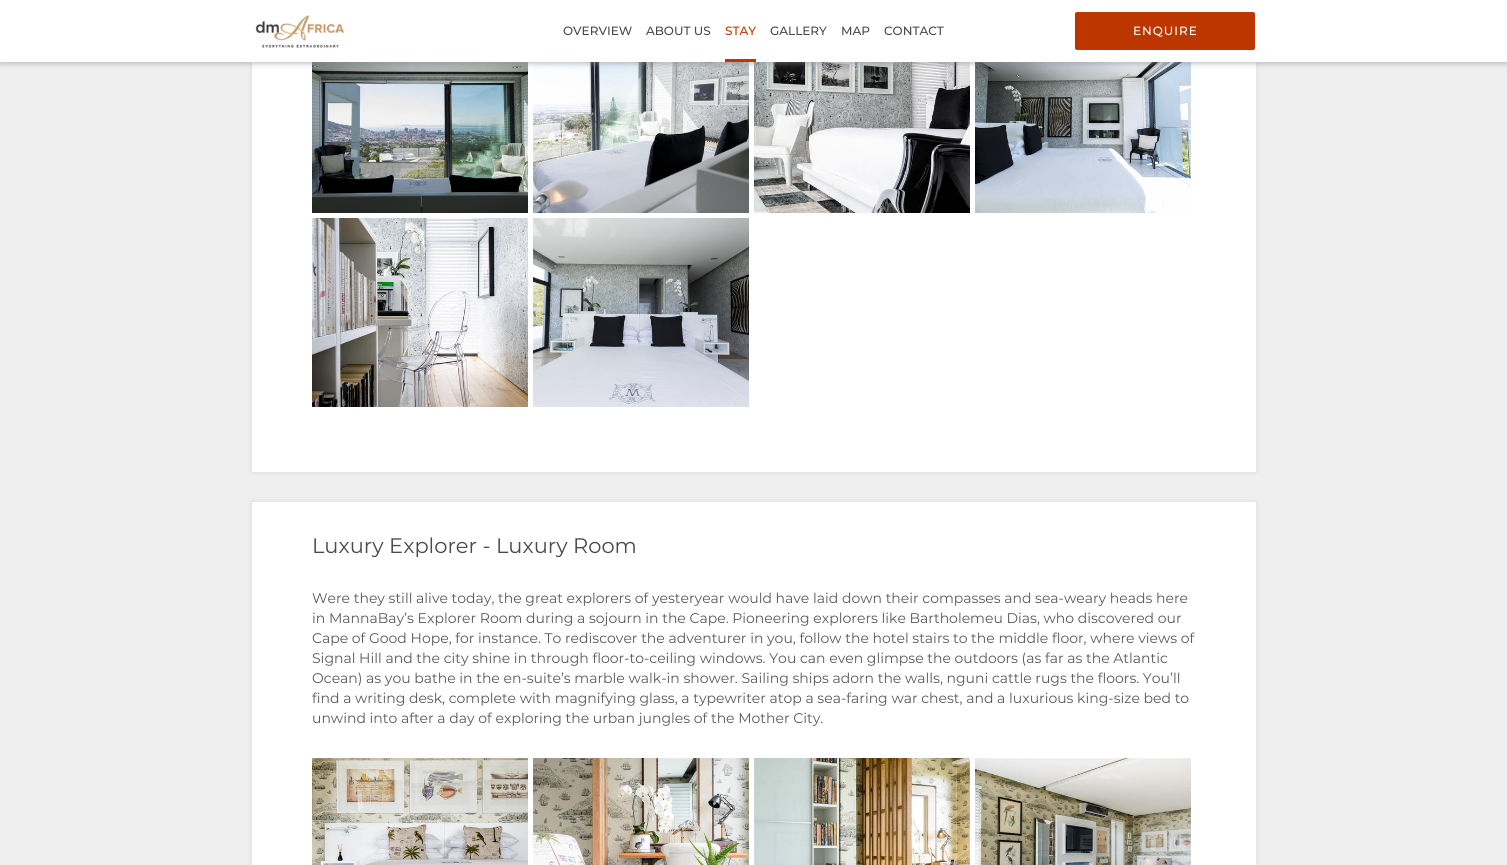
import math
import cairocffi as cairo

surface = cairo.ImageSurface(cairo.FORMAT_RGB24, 1507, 865)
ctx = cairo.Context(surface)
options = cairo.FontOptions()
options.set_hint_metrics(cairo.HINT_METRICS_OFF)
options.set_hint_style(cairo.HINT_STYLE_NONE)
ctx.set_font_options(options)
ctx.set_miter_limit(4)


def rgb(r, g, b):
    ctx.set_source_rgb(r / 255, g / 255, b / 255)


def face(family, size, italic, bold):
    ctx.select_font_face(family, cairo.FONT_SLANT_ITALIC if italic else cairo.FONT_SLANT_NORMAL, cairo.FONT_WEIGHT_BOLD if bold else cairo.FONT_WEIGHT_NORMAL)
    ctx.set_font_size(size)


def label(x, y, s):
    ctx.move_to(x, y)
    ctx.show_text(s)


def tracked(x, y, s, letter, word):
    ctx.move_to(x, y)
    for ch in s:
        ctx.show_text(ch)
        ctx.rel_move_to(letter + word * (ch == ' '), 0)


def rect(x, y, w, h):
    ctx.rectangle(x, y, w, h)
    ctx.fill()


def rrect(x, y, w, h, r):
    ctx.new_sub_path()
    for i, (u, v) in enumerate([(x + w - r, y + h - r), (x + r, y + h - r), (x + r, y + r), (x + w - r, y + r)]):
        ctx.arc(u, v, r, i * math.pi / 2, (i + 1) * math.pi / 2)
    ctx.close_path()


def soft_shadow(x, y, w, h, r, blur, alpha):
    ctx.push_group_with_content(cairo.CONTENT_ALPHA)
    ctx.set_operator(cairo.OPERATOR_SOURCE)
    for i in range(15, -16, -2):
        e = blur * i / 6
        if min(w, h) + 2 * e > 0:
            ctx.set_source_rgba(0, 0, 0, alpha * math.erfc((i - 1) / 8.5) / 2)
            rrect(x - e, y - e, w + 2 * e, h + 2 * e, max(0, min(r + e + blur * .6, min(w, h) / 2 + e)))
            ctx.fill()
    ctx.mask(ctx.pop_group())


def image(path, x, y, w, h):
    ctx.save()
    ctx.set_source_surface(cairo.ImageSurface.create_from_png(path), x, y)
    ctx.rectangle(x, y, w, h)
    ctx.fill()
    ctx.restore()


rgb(239, 239, 239)
ctx.paint()
rgb(0, 0, 0)
soft_shadow(252, -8, 1004, 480, 0, 2.5, 0.1)
rgb(255, 255, 255)
rect(252, 62, 1004, 410)
image('image1.png', 312, 62, 216, 151)
image('image2.png', 533, 62, 216, 151)
image('image3.png', 754, 62, 216, 151)
image('image4.png', 975, 62, 216, 151)
rgb(127, 142, 160)
soft_shadow(0, 2, 1507, 62, 0, 2.5, 0.5)
rgb(255, 255, 255)
rect(0, 0, 1507, 62)
image('image0.png', 255, 15, 90, 33)
face('Montserrat Medium', 12, 0, 0)
rgb(74, 74, 74)
label(563, 35, 'OVERVIEW')
label(646, 35, 'ABOUT US')
rgb(189, 54, 0)
label(725, 35, 'STAY')
rect(725, 59, 31, 3)
rgb(74, 74, 74)
label(770, 35, 'GALLERY')
label(841, 35, 'MAP')
label(884, 35, 'CONTACT')
rgb(189, 54, 0)
rrect(1075, 12, 180, 38, 2)
ctx.fill()
rgb(255, 255, 255)
tracked(1133, 35, 'ENQUIRE', 1, 0)
image('image5.png', 312, 218, 216, 189)
image('image6.png', 533, 218, 216, 189)
rgb(0, 0, 0)
soft_shadow(252, 502, 1004, 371, 0, 2.5, 0.1)
rgb(255, 255, 255)
rect(252, 502, 1004, 363)
face('Montserrat', 21, 0, 0)
rgb(74, 74, 74)
label(312, 553, 'Luxury Explorer - Luxury Room')
face('Montserrat', 14, 0, 0)
rgb(90, 90, 90)
label(312, 603, 'Were they still alive today, the great explorers of yesteryear would have laid down their compasses and sea-weary heads here')
label(312, 623, 'in MannaBay’s Explorer Room during a sojourn in the Cape. Pioneering explorers like Bartholemeu Dias, who discovered our')
label(312, 643, 'Cape of Good Hope, for instance. To rediscover the adventurer in you, follow the hotel stairs to the middle floor, where views of')
label(312, 663, 'Signal Hill and the city shine in through floor-to-ceiling windows. You can even glimpse the outdoors (as far as the Atlantic')
label(312, 683, 'Ocean) as you bathe in the en-suite’s marble walk-in shower. Sailing ships adorn the walls, nguni cattle rugs the floors. You’ll')
label(312, 703, 'find a writing desk, complete with magnifying glass, a typewriter atop a sea-faring war chest, and a luxurious king-size bed to')
label(312, 723, 'unwind into after a day of exploring the urban jungles of the Mother City.')
image('image7.png', 312, 758, 216, 107)
image('image8.png', 533, 758, 216, 107)
image('image9.png', 754, 758, 216, 107)
image('image10.png', 975, 758, 216, 107)
surface.write_to_png('render.png')
